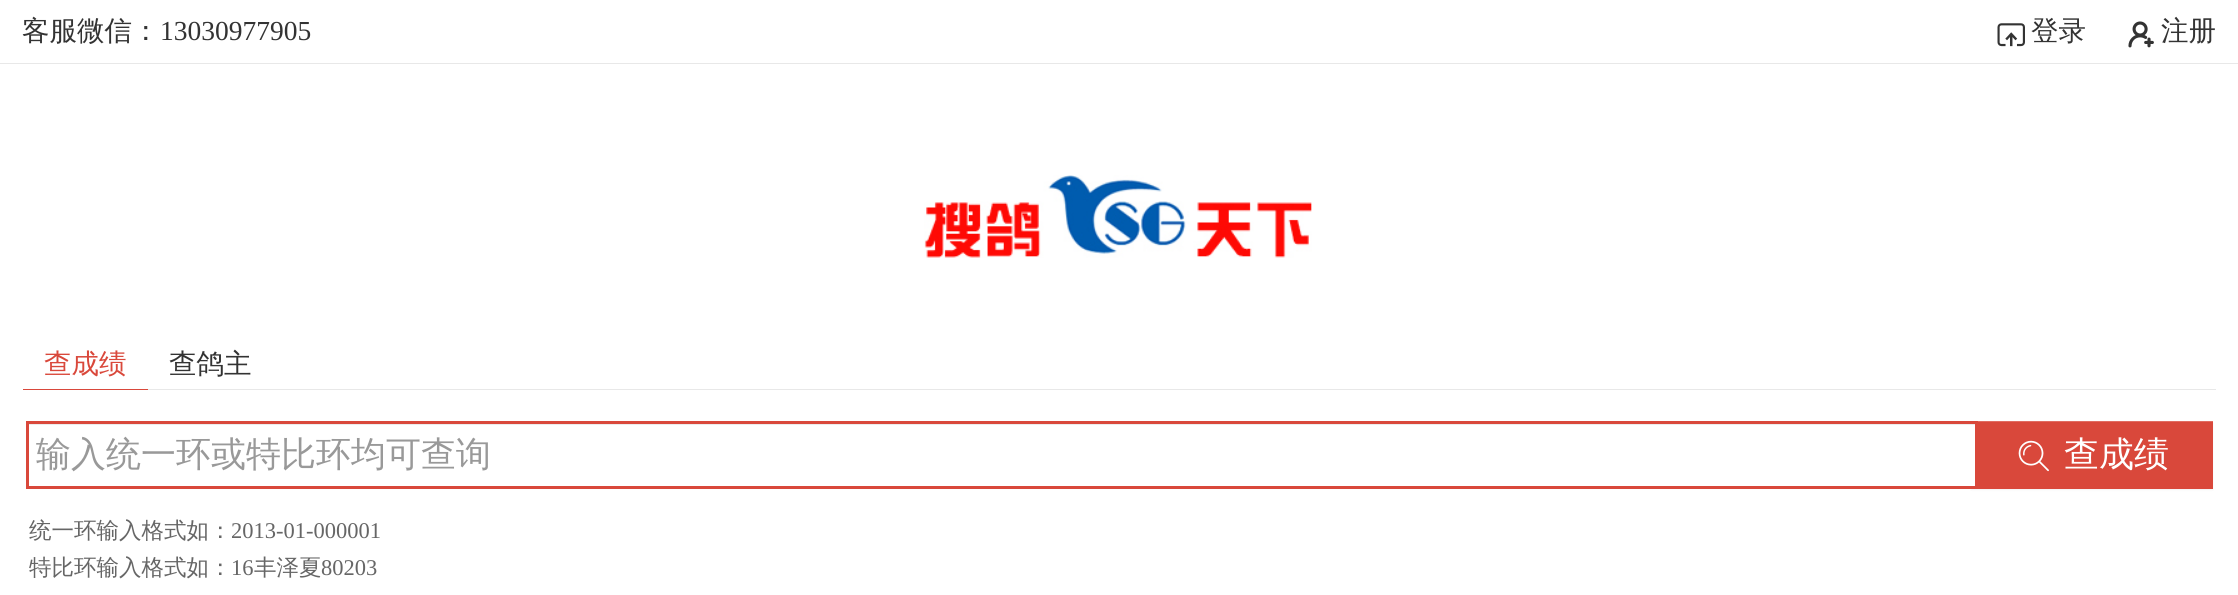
import math
import cairocffi as cairo

surface = cairo.ImageSurface(cairo.FORMAT_RGB24, 2238, 595)
ctx = cairo.Context(surface)
options = cairo.FontOptions()
options.set_hint_metrics(cairo.HINT_METRICS_OFF)
options.set_hint_style(cairo.HINT_STYLE_NONE)
ctx.set_font_options(options)
ctx.set_miter_limit(4)


def rgb(r, g, b):
    ctx.set_source_rgb(r / 255, g / 255, b / 255)


def face(family, size, italic, bold):
    ctx.select_font_face(family, cairo.FONT_SLANT_ITALIC if italic else cairo.FONT_SLANT_NORMAL, cairo.FONT_WEIGHT_BOLD if bold else cairo.FONT_WEIGHT_NORMAL)
    ctx.set_font_size(size)


def label(x, y, s):
    ctx.move_to(x, y)
    ctx.show_text(s)


def rect(x, y, w, h):
    ctx.rectangle(x, y, w, h)
    ctx.fill()


def rrect(x, y, w, h, r):
    ctx.new_sub_path()
    for i, (u, v) in enumerate([(x + w - r, y + h - r), (x + r, y + h - r), (x + r, y + r), (x + w - r, y + r)]):
        ctx.arc(u, v, r, i * math.pi / 2, (i + 1) * math.pi / 2)
    ctx.close_path()


def soft_shadow(x, y, w, h, r, blur, alpha):
    ctx.push_group_with_content(cairo.CONTENT_ALPHA)
    ctx.set_operator(cairo.OPERATOR_SOURCE)
    for i in range(15, -16, -2):
        e = blur * i / 6
        if min(w, h) + 2 * e > 0:
            ctx.set_source_rgba(0, 0, 0, alpha * math.erfc((i - 1) / 8.5) / 2)
            rrect(x - e, y - e, w + 2 * e, h + 2 * e, max(0, min(r + e + blur * .6, min(w, h) / 2 + e)))
            ctx.fill()
    ctx.mask(ctx.pop_group())


def image(path, x, y, w, h):
    ctx.save()
    ctx.set_source_surface(cairo.ImageSurface.create_from_png(path), x, y)
    ctx.rectangle(x, y, w, h)
    ctx.fill()
    ctx.restore()


rgb(255, 255, 255)
ctx.paint()
rgb(232, 232, 232)
rect(0, 63, 2238, 1)
face('WenQuanYi Zen Hei Medium', 27.5, 0, 0)
rgb(51, 51, 51)
label(22, 40, '客服微信：')
face('Liberation Serif', 27.5, 0, 0)
label(160, 40, '13030977905')
image('image0.png', 1997, 23, 28, 24)
face('WenQuanYi Zen Hei Medium', 27.5, 0, 0)
label(2031, 40, '登录')
image('image1.png', 2128, 21, 26, 27)
label(2161, 40, '注册')
image('image2.png', 924, 175, 388, 83)
rgb(232, 232, 232)
rect(148, 389, 2068, 1)
rgb(217, 72, 59)
rect(23, 389, 125, 1)
label(44, 373, '查成绩')
rgb(51, 51, 51)
label(169, 373, '查鸽主')
rgb(0, 0, 0)
soft_shadow(1971, 423, 242, 67, 0, 1, 0.05)
rgb(255, 255, 255)
rect(1970, 425, 5, 61)
rgb(236, 236, 236)
rect(29, 424, 1946, 1)
rgb(225, 109, 98)
rect(1971, 421, 242, 1)
ctx.rectangle(27.5, 422.5, 1949, 65)
rgb(217, 72, 59)
ctx.set_line_width(3)
ctx.stroke()
face('WenQuanYi Zen Hei Medium', 35, 0, 0)
rgb(153, 153, 153)
label(36, 466, '输入统一环或特比环均可查询')
rgb(217, 72, 59)
rect(1978, 422, 235, 67)
image('image3.png', 2018, 440, 31, 32)
rgb(255, 255, 255)
label(2064, 466, '查成绩')
face('WenQuanYi Zen Hei Medium', 22.5, 0, 0)
rgb(102, 102, 102)
label(29, 538, '统一环输入格式如：')
face('Liberation Serif', 22.5, 0, 0)
label(231, 538, '2013-01-000001')
face('WenQuanYi Zen Hei Medium', 22.5, 0, 0)
label(29, 575, '特比环输入格式如：')
face('Liberation Serif', 22.5, 0, 0)
label(231, 575, '16')
face('WenQuanYi Zen Hei Medium', 22.5, 0, 0)
label(254, 575, '丰泽夏')
face('Liberation Serif', 22.5, 0, 0)
label(321, 575, '80203')
surface.write_to_png('render.png')
